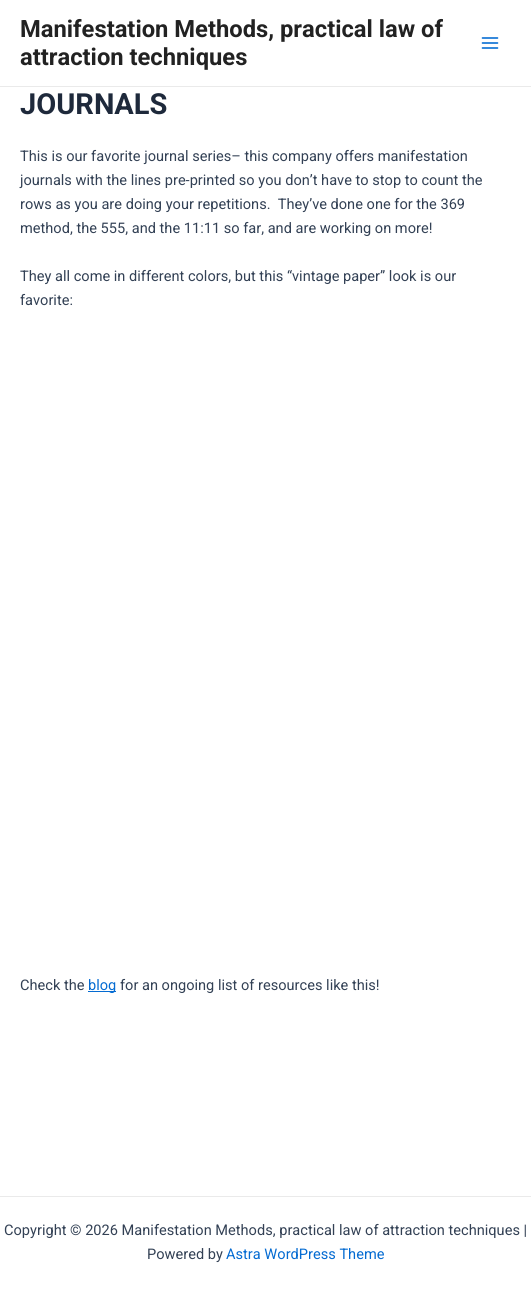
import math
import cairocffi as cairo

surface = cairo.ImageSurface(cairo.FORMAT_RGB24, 531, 1297)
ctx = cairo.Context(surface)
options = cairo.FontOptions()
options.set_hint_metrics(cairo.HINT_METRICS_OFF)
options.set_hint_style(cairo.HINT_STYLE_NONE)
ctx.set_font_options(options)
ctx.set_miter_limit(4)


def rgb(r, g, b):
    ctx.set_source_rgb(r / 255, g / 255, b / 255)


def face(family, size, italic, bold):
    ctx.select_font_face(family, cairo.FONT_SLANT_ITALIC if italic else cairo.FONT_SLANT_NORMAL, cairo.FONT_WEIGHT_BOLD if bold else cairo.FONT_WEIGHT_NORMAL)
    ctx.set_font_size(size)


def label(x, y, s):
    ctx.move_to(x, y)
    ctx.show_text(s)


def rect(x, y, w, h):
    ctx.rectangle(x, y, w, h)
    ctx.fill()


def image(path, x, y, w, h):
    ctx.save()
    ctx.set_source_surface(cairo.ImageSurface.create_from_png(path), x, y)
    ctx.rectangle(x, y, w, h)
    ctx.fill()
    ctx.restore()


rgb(255, 255, 255)
ctx.paint()
rgb(234, 234, 234)
rect(0, 86, 531, 1)
face('Roboto', 23.75, 0, 1)
rgb(34, 34, 34)
label(20, 37, 'Manifestation Methods, practical law of')
label(20, 65, 'attraction techniques')
image('image0.png', 481, 37, 18, 12)
face('Roboto', 29, 0, 1)
rgb(30, 41, 59)
label(20, 114, 'JOURNALS')
face('Roboto', 14.6, 0, 0)
rgb(51, 65, 85)
label(20, 161, 'This is our favorite journal series– this company offers manifestation')
label(20, 185, 'journals with the lines pre-printed so you don’t have to stop to count the')
label(20, 209, 'rows as you are doing your repetitions.  They’ve done one for the 369')
label(20, 233, 'method, the 555, and the 11:11 so far, and are working on more!')
label(20, 281, 'They all come in different colors, but this “vintage paper” look is our')
label(20, 305, 'favorite:')
label(20, 990, 'Check the')
rgb(4, 107, 210)
rect(88, 991, 28, 1)
label(88, 990, 'blog')
rgb(51, 65, 85)
label(120, 990, 'for an ongoing list of resources like this!')
rgb(234, 234, 234)
rect(0, 1196, 531, 1)
rgb(51, 65, 85)
label(4, 1235, 'Copyright © 2026 Manifestation Methods, practical law of attraction techniques |')
label(147, 1259, 'Powered by')
rgb(4, 107, 210)
label(226, 1259, 'Astra WordPress Theme')
surface.write_to_png('render.png')
